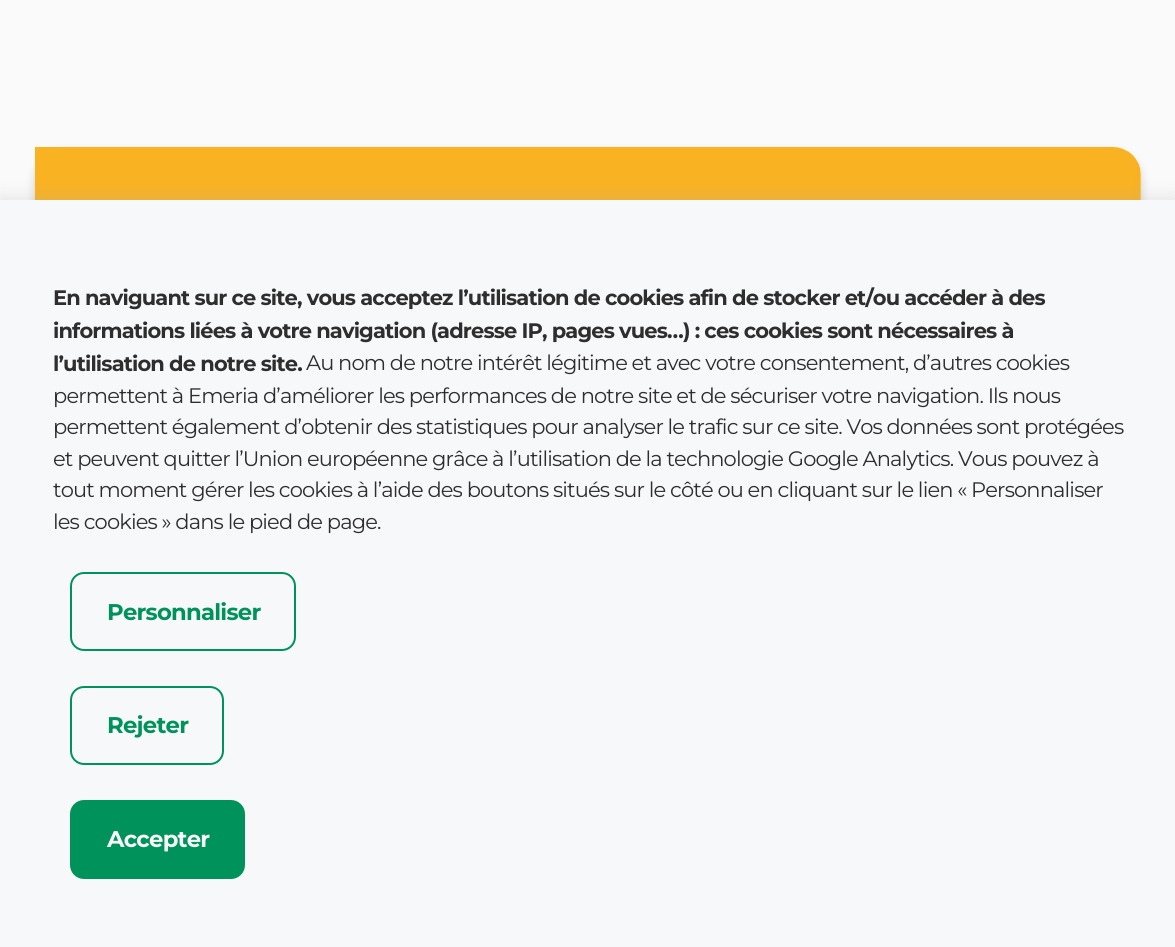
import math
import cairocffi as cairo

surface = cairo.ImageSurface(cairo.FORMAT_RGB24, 1175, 947)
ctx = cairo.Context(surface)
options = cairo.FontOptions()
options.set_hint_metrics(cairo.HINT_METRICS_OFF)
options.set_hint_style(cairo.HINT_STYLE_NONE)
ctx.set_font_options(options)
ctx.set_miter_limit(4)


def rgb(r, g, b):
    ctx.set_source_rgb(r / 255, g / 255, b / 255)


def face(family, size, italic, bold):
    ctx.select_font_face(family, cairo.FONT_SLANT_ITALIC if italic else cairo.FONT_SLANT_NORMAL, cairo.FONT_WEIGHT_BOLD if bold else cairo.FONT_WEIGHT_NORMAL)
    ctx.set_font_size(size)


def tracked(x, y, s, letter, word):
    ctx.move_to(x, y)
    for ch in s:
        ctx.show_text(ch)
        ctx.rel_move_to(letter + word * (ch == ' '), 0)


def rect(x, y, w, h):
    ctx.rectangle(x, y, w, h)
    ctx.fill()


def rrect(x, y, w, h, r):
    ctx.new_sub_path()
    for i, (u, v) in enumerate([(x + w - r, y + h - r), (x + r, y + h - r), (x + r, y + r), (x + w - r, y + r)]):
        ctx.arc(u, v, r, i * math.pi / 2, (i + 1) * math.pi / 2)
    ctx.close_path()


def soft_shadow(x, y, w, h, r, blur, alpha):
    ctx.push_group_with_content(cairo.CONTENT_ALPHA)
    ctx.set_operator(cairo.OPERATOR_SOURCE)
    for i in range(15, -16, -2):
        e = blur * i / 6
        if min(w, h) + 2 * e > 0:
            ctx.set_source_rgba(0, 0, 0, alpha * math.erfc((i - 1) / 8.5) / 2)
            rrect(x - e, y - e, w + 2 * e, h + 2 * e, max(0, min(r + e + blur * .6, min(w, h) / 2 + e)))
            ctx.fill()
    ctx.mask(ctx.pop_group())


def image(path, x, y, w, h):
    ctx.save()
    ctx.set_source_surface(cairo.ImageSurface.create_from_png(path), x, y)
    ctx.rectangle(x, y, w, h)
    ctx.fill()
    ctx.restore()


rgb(250, 250, 250)
ctx.paint()
rgb(0, 0, 0)
soft_shadow(35, 152, 1106, 321, 28, 5, 0.16)
rgb(255, 255, 255)
ctx.new_path()
ctx.move_to(35, 147)
ctx.line_to(1113, 147)
ctx.curve_to(1128.5, 147, 1141, 159.5, 1141, 175)
ctx.line_to(1141, 467)
ctx.line_to(63, 467)
ctx.curve_to(47.5, 467, 35, 454.5, 35, 439)
ctx.close_path()
ctx.fill()
image('image0.png', 35, 147, 1106, 53)
rgb(172, 171, 171)
soft_shadow(0, 198, 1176, 749, 0, 9, 0.3)
rgb(247, 248, 249)
rect(0, 200, 1175, 747)
face('Montserrat', 21, 0, 1)
rgb(46, 46, 46)
tracked(53, 305, 'En naviguant sur ce site, vous acceptez l’utilisation de cookies afin de stocker et/ou accéder à des', -0.86, 0)
tracked(53, 338, 'informations liées à votre navigation (adresse IP, pages vues…) : ces cookies sont nécessaires à', -0.86, 0)
tracked(53, 371, 'l’utilisation de notre site.', -0.86, 0)
face('Montserrat', 21, 0, 0)
tracked(306, 370, 'Au nom de notre intérêt légitime et avec votre consentement, d’autres cookies', -0.86, 0)
tracked(53, 403, 'permettent à Emeria d’améliorer les performances de notre site et de sécuriser votre navigation. Ils nous', -0.86, 0)
tracked(53, 434, 'permettent également d’obtenir des statistiques pour analyser le trafic sur ce site. Vos données sont protégées', -0.86, 0)
tracked(53, 466, 'et peuvent quitter l’Union européenne grâce à l’utilisation de la technologie Google Analytics. Vous pouvez à', -0.86, 0)
tracked(53, 497, 'tout moment gérer les cookies à l’aide des boutons situés sur le côté ou en cliquant sur le lien « Personnaliser', -0.86, 0)
tracked(53, 529, 'les cookies » dans le pied de page.', -0.86, 0)
rrect(71, 573, 224, 77, 13)
rgb(0, 146, 91)
ctx.stroke()
face('Montserrat', 22.75, 0, 1)
tracked(107, 620, 'Personnaliser', -0.75, 0)
rrect(71, 687, 152, 77, 13)
ctx.stroke()
tracked(107, 733, 'Rejeter', -0.75, 0)
rrect(71, 801, 173, 77, 13)
ctx.fill_preserve()
ctx.stroke()
rgb(247, 248, 249)
tracked(107, 847, 'Accepter', -0.75, 0)
surface.write_to_png('render.png')
